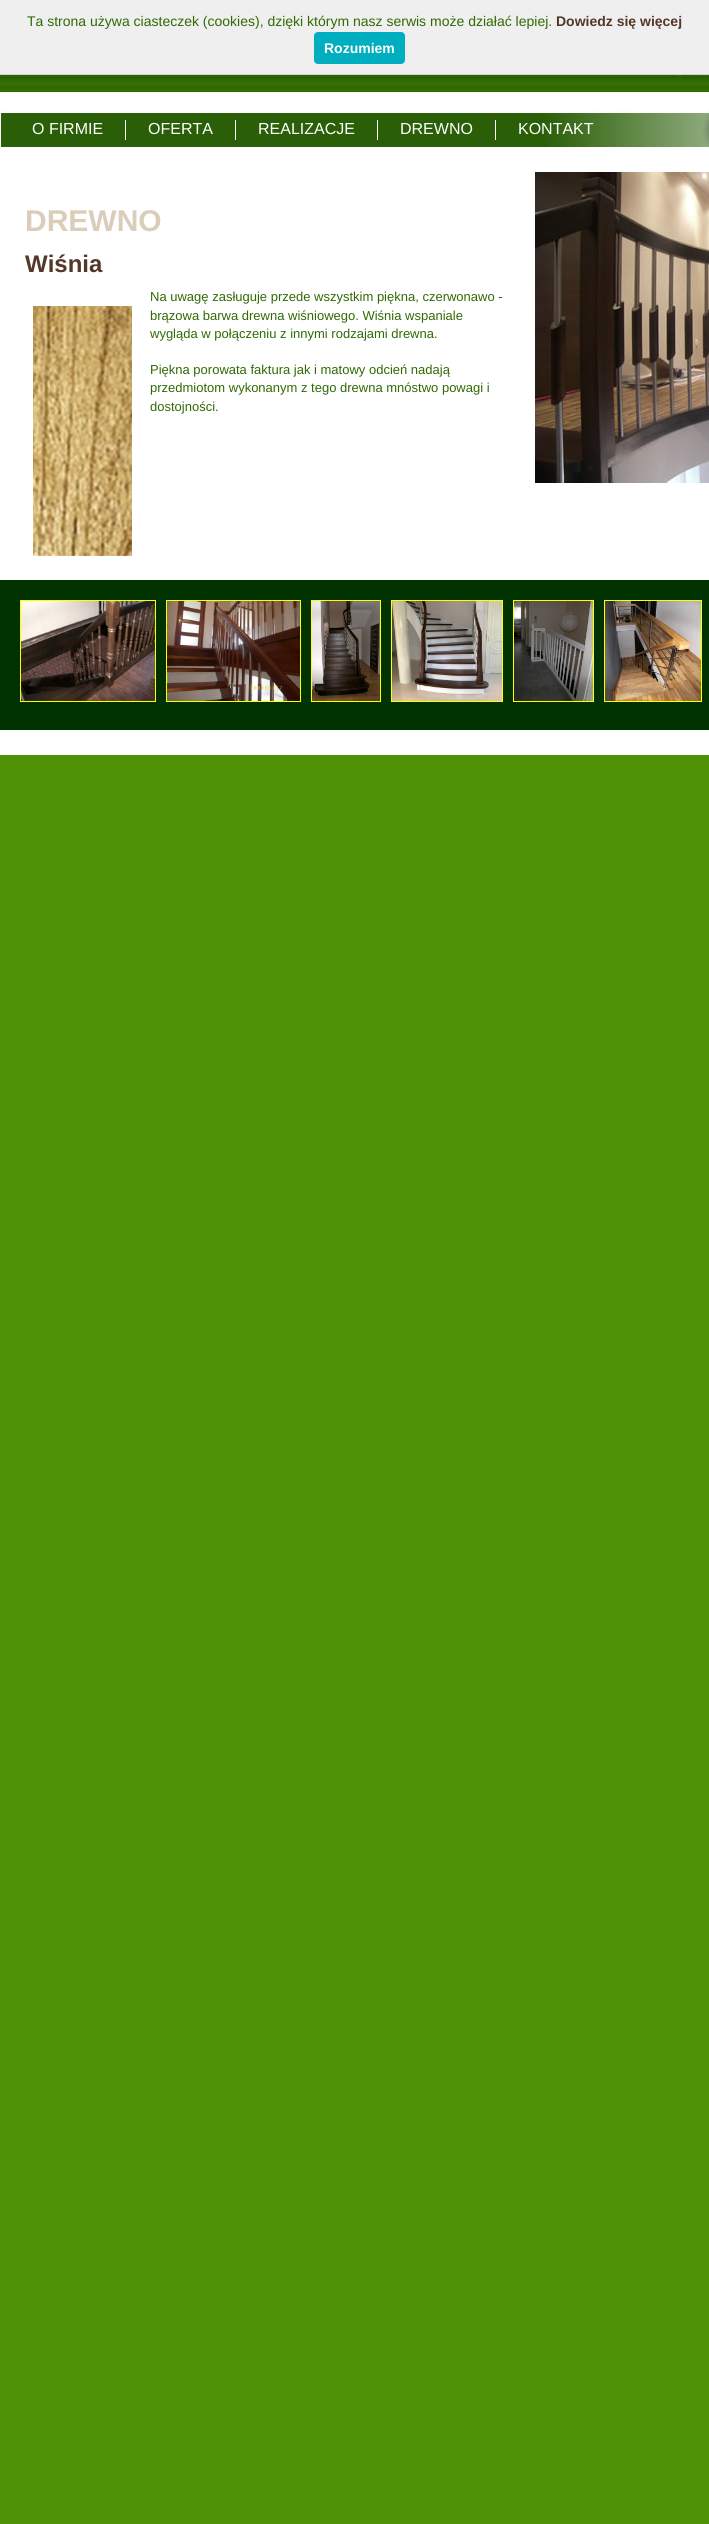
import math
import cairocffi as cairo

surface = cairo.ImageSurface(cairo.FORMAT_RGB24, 709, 2524)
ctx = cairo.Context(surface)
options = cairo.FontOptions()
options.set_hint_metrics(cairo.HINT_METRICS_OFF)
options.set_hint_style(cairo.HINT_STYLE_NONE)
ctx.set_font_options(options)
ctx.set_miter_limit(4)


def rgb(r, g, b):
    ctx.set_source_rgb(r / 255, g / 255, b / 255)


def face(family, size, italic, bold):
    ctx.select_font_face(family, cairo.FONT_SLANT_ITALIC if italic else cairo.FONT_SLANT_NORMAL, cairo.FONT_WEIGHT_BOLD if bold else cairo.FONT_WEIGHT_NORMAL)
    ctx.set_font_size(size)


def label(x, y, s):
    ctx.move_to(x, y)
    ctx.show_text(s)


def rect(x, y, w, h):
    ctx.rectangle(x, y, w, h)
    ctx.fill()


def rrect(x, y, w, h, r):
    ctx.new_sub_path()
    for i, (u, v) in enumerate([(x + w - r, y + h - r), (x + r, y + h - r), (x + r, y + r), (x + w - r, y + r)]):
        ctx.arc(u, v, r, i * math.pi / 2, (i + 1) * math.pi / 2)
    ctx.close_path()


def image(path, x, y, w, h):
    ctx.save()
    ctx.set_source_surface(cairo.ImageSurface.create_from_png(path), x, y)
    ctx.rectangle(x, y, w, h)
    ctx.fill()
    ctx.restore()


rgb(79, 146, 5)
ctx.paint()
rgb(239, 239, 239)
rect(0, 0, 709, 74)
rgb(211, 208, 208)
rect(0, 74, 709, 1)
face('Liberation Sans', 14, 0, 0)
rgb(48, 106, 3)
label(27, 26, 'Ta strona używa ciasteczek (cookies), dzięki którym nasz serwis może działać lepiej.')
face('Liberation Sans', 14, 0, 1)
rgb(84, 55, 42)
label(556, 26, 'Dowiedz się więcej')
rgb(0, 175, 191)
rrect(314, 32, 91, 32, 4)
ctx.fill()
rgb(255, 255, 255)
label(324, 53, 'Rozumiem')
rect(0, 92, 709, 663)
image('image0.png', 0, 75, 709, 17)
image('image1.png', 0, 108, 709, 40)
rect(125, 120, 1, 20)
face('Liberation Sans', 16, 0, 0)
label(32, 134, 'O FIRMIE')
rect(235, 120, 1, 20)
label(148, 134, 'OFERTA')
rect(377, 120, 1, 20)
label(258, 134, 'REALIZACJE')
rect(495, 120, 1, 20)
label(400, 134, 'DREWNO')
label(518, 134, 'KONTAKT')
face('Liberation Sans', 30, 0, 1)
rgb(219, 205, 186)
label(25, 231, 'DREWNO')
face('Liberation Sans', 24, 0, 1)
rgb(84, 55, 42)
label(25, 272, 'Wiśnia')
face('Liberation Sans', 13, 0, 0)
rgb(48, 106, 3)
label(150, 301, 'Na uwagę zasługuje przede wszystkim piękna, czerwonawo -')
image('image2.png', 33, 306, 99, 250)
label(150, 320, 'brązowa barwa drewna wiśniowego. Wiśnia wspaniale')
label(150, 338, 'wygląda w połączeniu z innymi rodzajami drewna.')
label(150, 374, 'Piękna porowata faktura jak i matowy odcień nadają')
label(150, 392, 'przedmiotom wykonanym z tego drewna mnóstwo powagi i')
label(150, 411, 'dostojności.')
image('image3.png', 535, 172, 174, 311)
rgb(0, 51, 0)
rect(0, 580, 709, 150)
ctx.rectangle(20.5, 600.5, 135, 101)
rgb(255, 255, 0)
ctx.set_line_width(1)
ctx.stroke()
image('image4.png', 21, 601, 134, 100)
ctx.rectangle(166.5, 600.5, 134, 101)
ctx.stroke()
image('image5.png', 167, 601, 133, 100)
ctx.rectangle(311.5, 600.5, 69, 101)
ctx.stroke()
image('image6.png', 312, 601, 68, 100)
ctx.rectangle(391.5, 600.5, 111, 101)
ctx.stroke()
image('image7.png', 392, 601, 110, 100)
ctx.rectangle(513.5, 600.5, 80, 101)
ctx.stroke()
image('image8.png', 514, 601, 79, 100)
ctx.rectangle(604.5, 600.5, 97, 101)
ctx.stroke()
image('image9.png', 605, 601, 96, 100)
surface.write_to_png('render.png')
